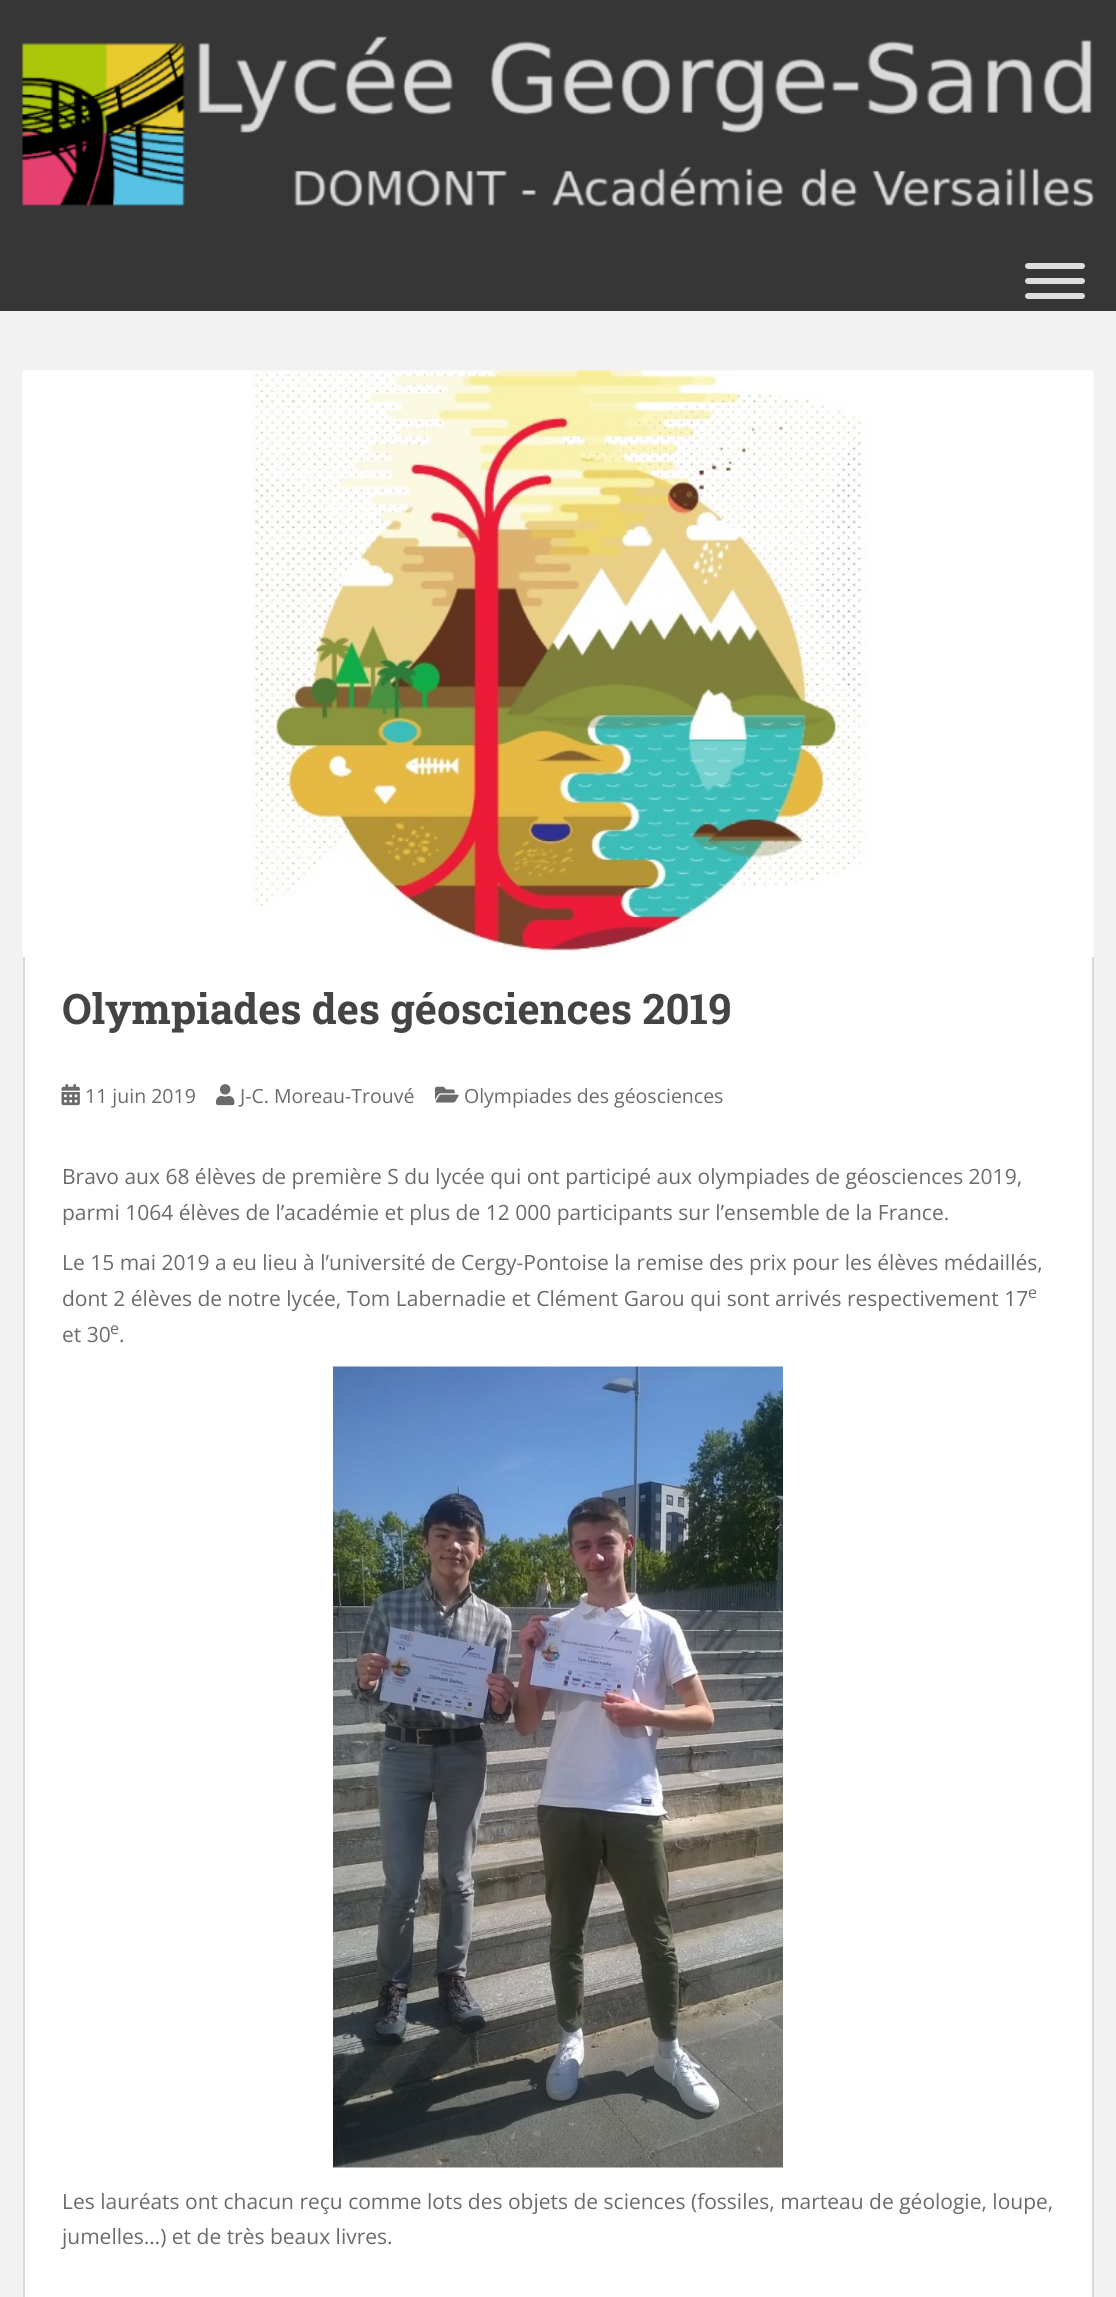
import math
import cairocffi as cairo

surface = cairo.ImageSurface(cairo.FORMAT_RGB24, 1116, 2297)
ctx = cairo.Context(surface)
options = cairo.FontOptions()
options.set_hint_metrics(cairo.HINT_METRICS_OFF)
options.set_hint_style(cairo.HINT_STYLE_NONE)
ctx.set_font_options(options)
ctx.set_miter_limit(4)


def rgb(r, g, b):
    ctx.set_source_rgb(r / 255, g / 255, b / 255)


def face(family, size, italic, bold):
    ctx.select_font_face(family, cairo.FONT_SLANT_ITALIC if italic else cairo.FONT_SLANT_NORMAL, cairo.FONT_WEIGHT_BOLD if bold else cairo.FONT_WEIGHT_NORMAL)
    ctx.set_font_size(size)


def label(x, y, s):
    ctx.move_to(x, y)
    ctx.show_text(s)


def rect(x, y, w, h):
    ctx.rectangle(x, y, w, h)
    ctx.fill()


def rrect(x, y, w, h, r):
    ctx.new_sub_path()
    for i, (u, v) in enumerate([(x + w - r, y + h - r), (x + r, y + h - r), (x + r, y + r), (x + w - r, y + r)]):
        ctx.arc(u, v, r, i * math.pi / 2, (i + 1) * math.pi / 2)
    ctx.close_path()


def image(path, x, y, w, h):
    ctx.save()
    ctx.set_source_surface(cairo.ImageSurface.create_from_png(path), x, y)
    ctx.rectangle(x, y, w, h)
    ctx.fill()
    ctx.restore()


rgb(242, 242, 242)
ctx.paint()
rgb(54, 54, 54)
rect(0, 0, 1116, 311)
image('image0.png', 22, 36, 1072, 171)
rgb(221, 221, 221)
rrect(1025, 263, 60, 6, 3)
ctx.fill()
rrect(1025, 278, 60, 6, 3)
ctx.fill()
rrect(1025, 293, 60, 6, 3)
ctx.fill()
image('image1.png', 22, 370, 1072, 587)
rgb(255, 255, 255)
rect(25, 957, 1067, 1340)
rgb(218, 218, 218)
rect(1092, 957, 2, 1340)
rect(23, 957, 2, 1340)
face('Roboto Slab', 42, 0, 1)
rgb(68, 68, 68)
label(62, 1024, 'Olympiades des géosciences 2019')
image('image2.png', 61, 1084, 19, 22)
face('Open Sans', 19.5, 0, 0)
rgb(107, 107, 107)
label(85, 1103, '11 juin 2019')
image('image3.png', 216, 1084, 19, 22)
label(240, 1103, 'J-C. Moreau-Trouvé')
image('image4.png', 435, 1086, 24, 17)
label(464, 1103, 'Olympiades des géosciences')
face('Open Sans', 21, 0, 0)
label(62, 1184, 'Bravo aux 68 élèves de première S du lycée qui ont participé aux olympiades de géosciences 2019,')
label(62, 1220, 'parmi 1064 élèves de l’académie et plus de 12 000 participants sur l’ensemble de la France.')
label(62, 1270, 'Le 15 mai 2019 a eu lieu à l’université de Cergy-Pontoise la remise des prix pour les élèves médaillés,')
label(62, 1306, 'dont 2 élèves de notre lycée, Tom Labernadie et Clément Garou qui sont arrivés respectivement 17')
face('Open Sans', 16, 0, 0)
label(1028, 1298, 'e')
face('Open Sans', 21, 0, 0)
label(62, 1342, 'et 30')
face('Open Sans', 16, 0, 0)
label(110, 1334, 'e')
face('Open Sans', 21, 0, 0)
label(119, 1342, '.')
image('image5.png', 333, 1366, 450, 802)
label(62, 2209, 'Les lauréats ont chacun reçu comme lots des objets de sciences (fossiles, marteau de géologie, loupe,')
label(62, 2244, 'jumelles…) et de très beaux livres.')
surface.write_to_png('render.png')
